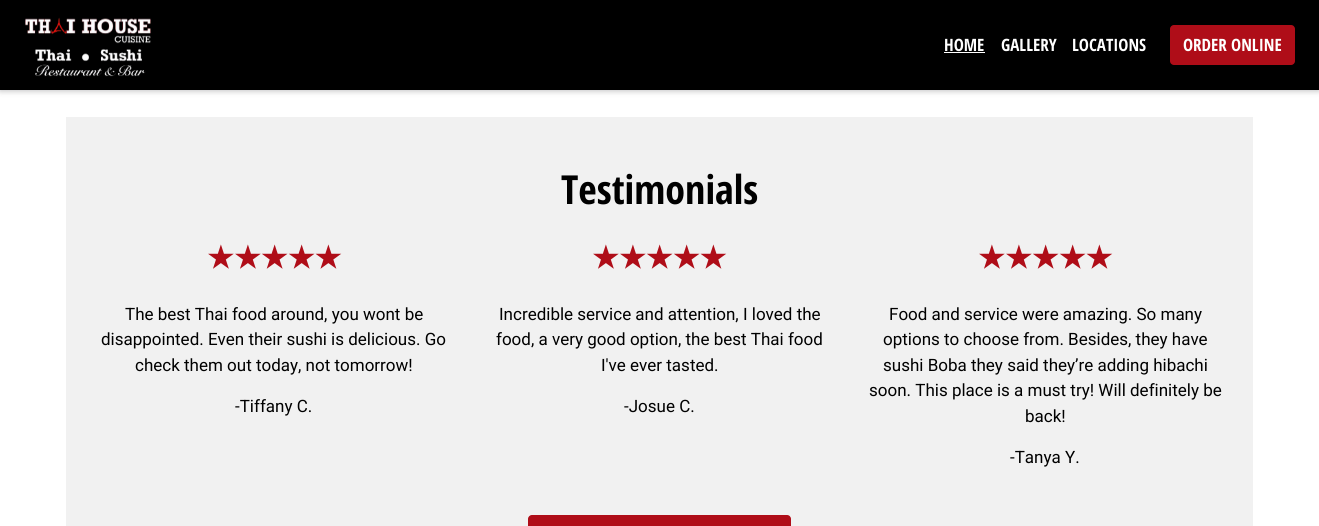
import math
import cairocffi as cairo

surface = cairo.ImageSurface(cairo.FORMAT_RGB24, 1319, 526)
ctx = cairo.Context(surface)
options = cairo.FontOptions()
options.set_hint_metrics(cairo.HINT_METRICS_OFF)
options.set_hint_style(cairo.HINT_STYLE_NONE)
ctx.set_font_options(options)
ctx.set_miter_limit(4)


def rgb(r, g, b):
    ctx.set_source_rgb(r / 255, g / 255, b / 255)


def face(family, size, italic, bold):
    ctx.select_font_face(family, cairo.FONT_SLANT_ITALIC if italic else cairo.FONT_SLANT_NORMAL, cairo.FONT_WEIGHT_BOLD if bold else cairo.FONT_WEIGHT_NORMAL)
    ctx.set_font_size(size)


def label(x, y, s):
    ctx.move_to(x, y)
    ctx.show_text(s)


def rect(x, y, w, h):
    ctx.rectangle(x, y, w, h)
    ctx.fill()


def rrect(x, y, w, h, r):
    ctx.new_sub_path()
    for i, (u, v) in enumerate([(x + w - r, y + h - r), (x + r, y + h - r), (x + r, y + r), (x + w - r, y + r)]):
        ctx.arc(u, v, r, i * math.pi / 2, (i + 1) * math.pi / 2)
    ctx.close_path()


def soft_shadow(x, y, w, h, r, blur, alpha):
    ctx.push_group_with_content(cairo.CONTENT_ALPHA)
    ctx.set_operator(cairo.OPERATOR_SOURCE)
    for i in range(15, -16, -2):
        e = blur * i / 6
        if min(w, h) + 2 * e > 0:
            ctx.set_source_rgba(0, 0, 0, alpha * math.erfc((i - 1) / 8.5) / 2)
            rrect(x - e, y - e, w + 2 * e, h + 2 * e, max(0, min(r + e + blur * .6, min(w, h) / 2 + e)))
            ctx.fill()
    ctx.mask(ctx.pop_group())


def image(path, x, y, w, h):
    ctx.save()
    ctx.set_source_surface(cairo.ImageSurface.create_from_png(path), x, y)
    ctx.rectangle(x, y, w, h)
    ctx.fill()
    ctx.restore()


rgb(255, 255, 255)
ctx.paint()
rgb(32, 33, 36)
soft_shadow(0, 1, 1319, 90, 0, 3, 0.28)
rgb(0, 0, 0)
rect(0, 0, 1319, 90)
image('image0.png', 25, 17, 126, 60)
face('Open Sans Condensed', 17, 0, 1)
rgb(255, 255, 255)
label(944, 51, 'HOME')
rect(944, 52, 41, 1)
label(1001, 51, 'GALLERY')
label(1072, 51, 'LOCATIONS')
rgb(175, 13, 24)
rrect(1170, 25, 125, 40, 4)
ctx.fill()
rgb(255, 255, 255)
label(1183, 51, 'ORDER ONLINE')
rgb(241, 241, 241)
rect(66, 117, 1187, 409)
face('Open Sans Condensed', 40, 0, 1)
rgb(0, 0, 0)
label(561, 204, 'Testimonials')
face('DejaVu Sans', 30, 0, 1)
rgb(175, 13, 24)
label(207, 268, '★★★★★')
face('Roboto', 17, 0, 0)
rgb(0, 0, 0)
label(125, 320, 'The best Thai food around, you wont be')
label(101, 345, 'disappointed. Even their sushi is delicious. Go')
label(135, 371, 'check them out today, not tomorrow!')
label(235, 412, '-Tiffany C.')
face('DejaVu Sans', 30, 0, 1)
rgb(175, 13, 24)
label(592, 268, '★★★★★')
face('Roboto', 17, 0, 0)
rgb(0, 0, 0)
label(499, 320, 'Incredible service and attention, I loved the')
label(496, 345, 'food, a very good option, the best Thai food')
label(601, 371, 'I\'ve ever tasted.')
label(624, 412, '-Josue C.')
face('DejaVu Sans', 30, 0, 1)
rgb(175, 13, 24)
label(978, 268, '★★★★★')
face('Roboto', 17, 0, 0)
rgb(0, 0, 0)
label(889, 320, 'Food and service were amazing. So many')
label(883, 345, 'options to choose from. Besides, they have')
label(883, 371, 'sushi Boba they said they’re adding hibachi')
label(869, 396, 'soon. This place is a must try! Will definitely be')
label(1025, 422, 'back!')
label(1010, 463, '-Tanya Y.')
rgb(175, 13, 24)
rrect(528, 515, 263, 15, 4)
ctx.fill()
surface.write_to_png('render.png')
